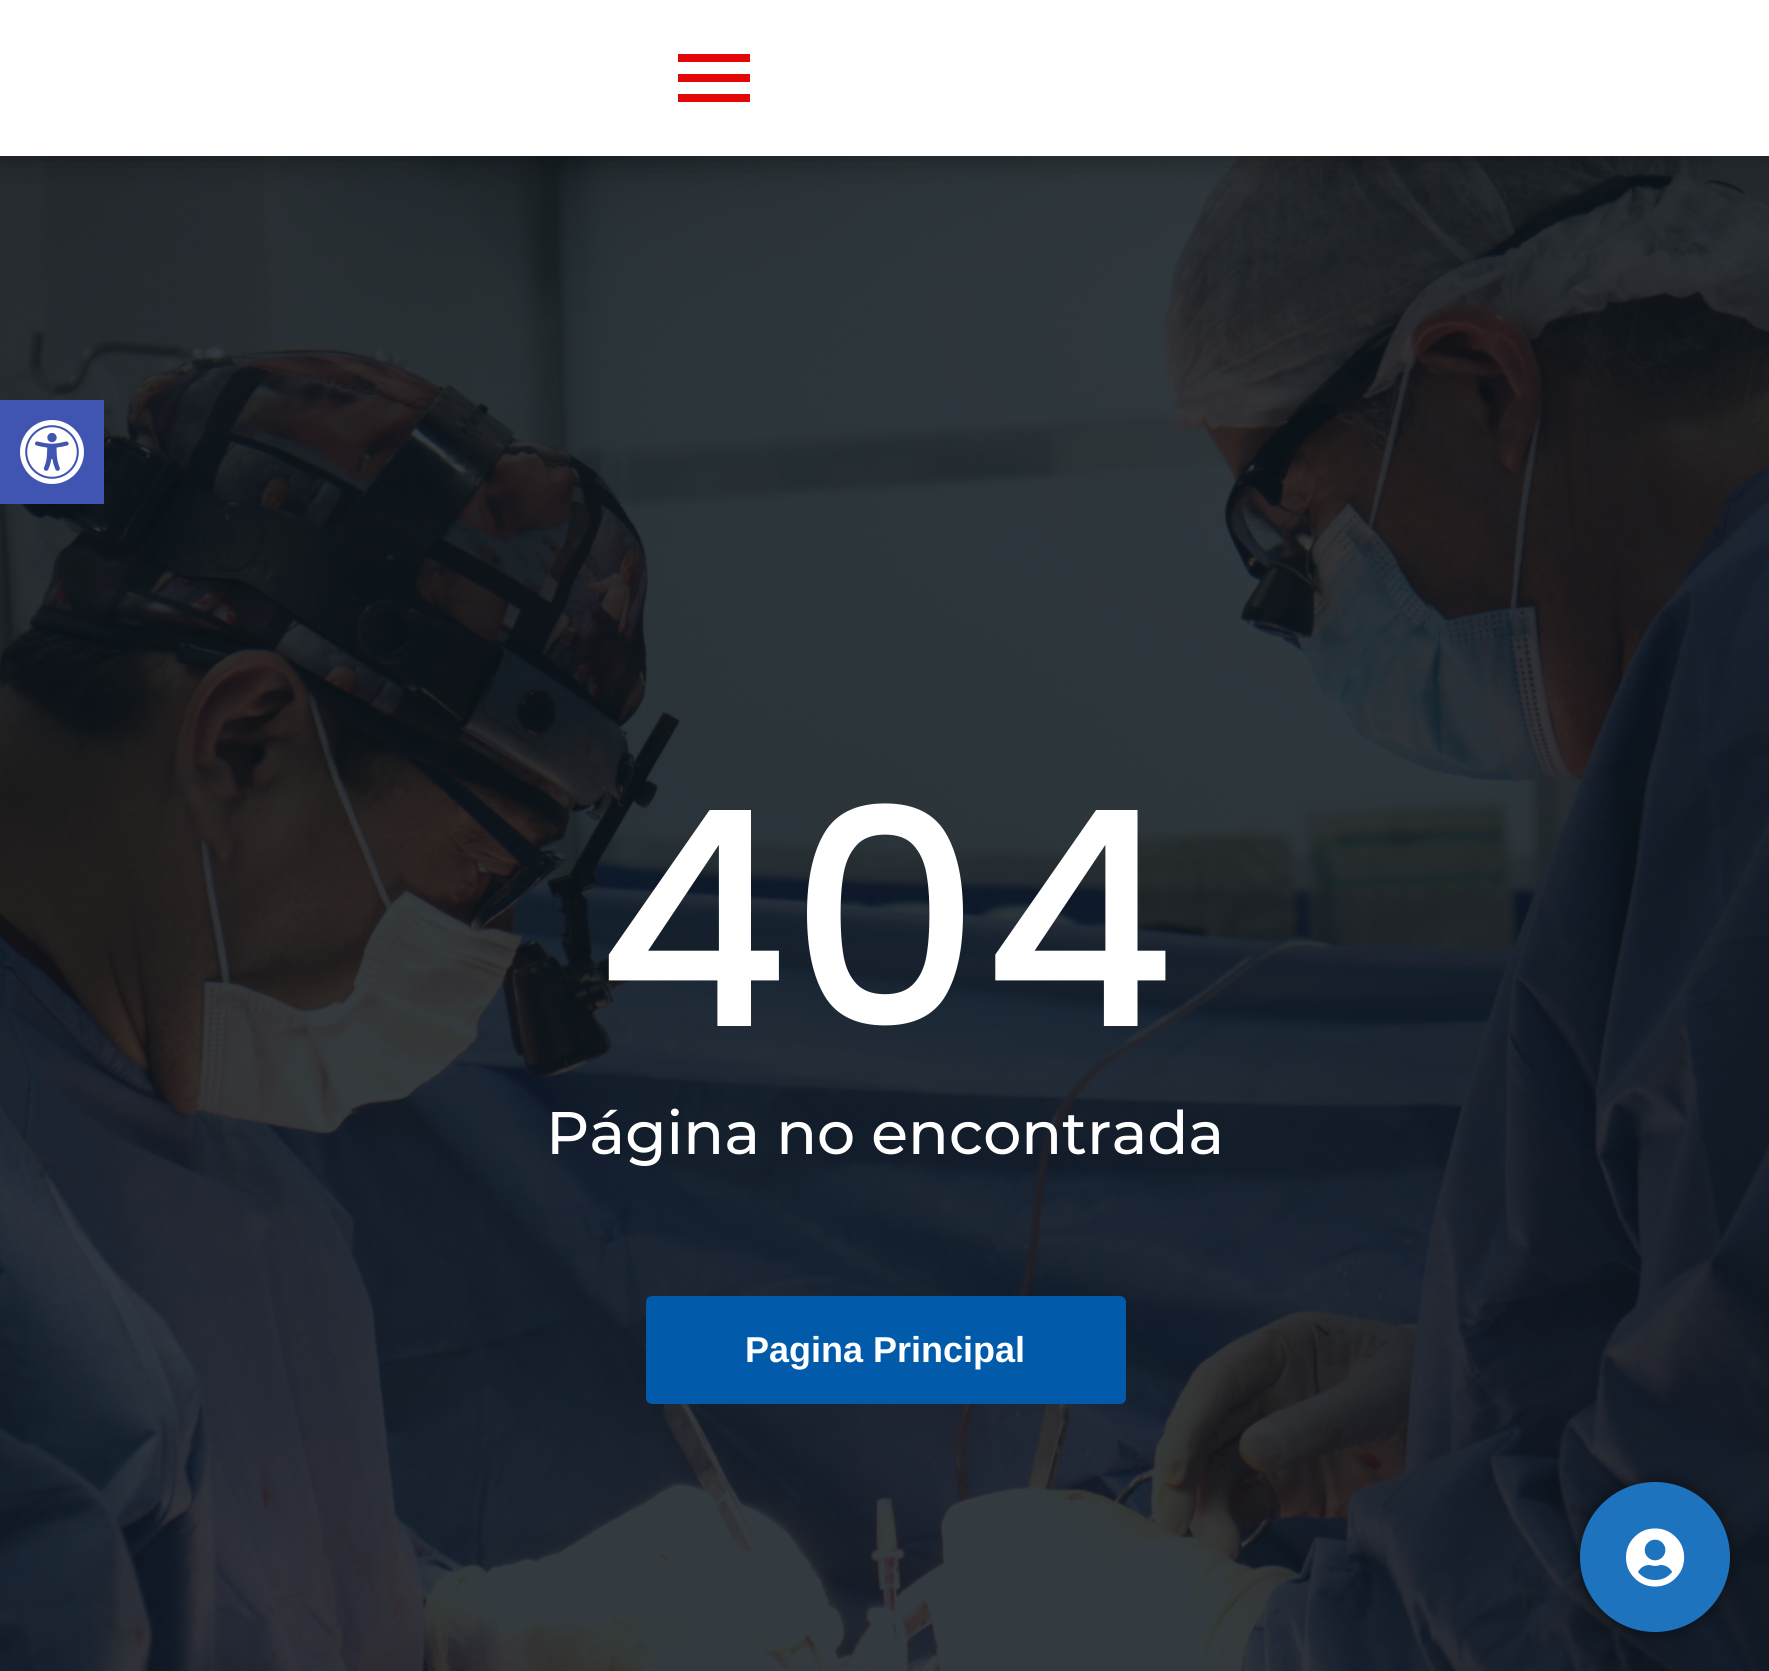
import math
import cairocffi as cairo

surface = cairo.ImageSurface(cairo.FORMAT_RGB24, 1769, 1671)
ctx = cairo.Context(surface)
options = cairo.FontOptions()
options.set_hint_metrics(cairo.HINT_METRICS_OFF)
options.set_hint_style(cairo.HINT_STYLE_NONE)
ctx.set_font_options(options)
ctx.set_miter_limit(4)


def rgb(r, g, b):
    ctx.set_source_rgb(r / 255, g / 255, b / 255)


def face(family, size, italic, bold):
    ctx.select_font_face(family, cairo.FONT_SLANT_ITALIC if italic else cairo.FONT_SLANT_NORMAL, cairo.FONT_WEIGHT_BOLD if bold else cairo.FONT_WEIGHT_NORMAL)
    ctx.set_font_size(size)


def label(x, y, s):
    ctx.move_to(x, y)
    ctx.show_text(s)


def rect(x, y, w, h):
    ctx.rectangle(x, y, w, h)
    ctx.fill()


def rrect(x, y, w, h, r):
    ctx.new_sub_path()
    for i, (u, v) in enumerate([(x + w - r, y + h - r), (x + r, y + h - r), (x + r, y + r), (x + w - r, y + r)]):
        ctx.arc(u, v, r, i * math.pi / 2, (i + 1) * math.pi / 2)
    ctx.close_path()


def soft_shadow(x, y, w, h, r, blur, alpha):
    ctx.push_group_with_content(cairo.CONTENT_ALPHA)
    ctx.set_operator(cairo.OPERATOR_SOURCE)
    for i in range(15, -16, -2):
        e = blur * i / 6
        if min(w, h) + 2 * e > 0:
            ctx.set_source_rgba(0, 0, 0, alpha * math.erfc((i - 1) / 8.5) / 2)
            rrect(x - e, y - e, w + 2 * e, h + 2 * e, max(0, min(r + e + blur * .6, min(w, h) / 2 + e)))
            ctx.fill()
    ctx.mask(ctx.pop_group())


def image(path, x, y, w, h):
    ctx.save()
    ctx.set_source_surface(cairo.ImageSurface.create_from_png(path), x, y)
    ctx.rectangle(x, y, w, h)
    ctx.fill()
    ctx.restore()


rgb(255, 255, 255)
ctx.paint()
image('image1.png', 0, 156, 1769, 1515)
rgb(64, 84, 178)
rect(0, 400, 104, 104)
image('image0.png', 20, 420, 64, 64)
ctx.save()
ctx.rectangle(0, 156, 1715, 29)
ctx.clip()
rgb(0, 0, 0)
soft_shadow(-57, 4, 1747, 148, 0, 19, 0.5)
ctx.restore()
rgb(228, 7, 7)
rect(678, 54, 72, 8)
rect(678, 74, 72, 8)
rect(678, 94, 72, 8)
face('Poppins Medium', 300, 0, 0)
rgb(255, 255, 255)
label(595, 1026, '404')
face('Montserrat Medium', 60, 0, 0)
label(546, 1154, 'Página no encontrada')
rgb(1, 90, 170)
rrect(646, 1296, 480, 108, 6)
ctx.fill()
face('Liberation Sans', 36, 0, 1)
rgb(255, 255, 255)
label(745, 1362, 'Pagina Principal')
rgb(0, 0, 0)
soft_shadow(1580, 1482, 150, 150, 75, 8, 0.5)
rgb(30, 115, 190)
ctx.arc(1655, 1557, 75, 0, 2 * math.pi)
ctx.fill()
image('image2.png', 1626, 1528, 59, 59)
surface.write_to_png('render.png')
